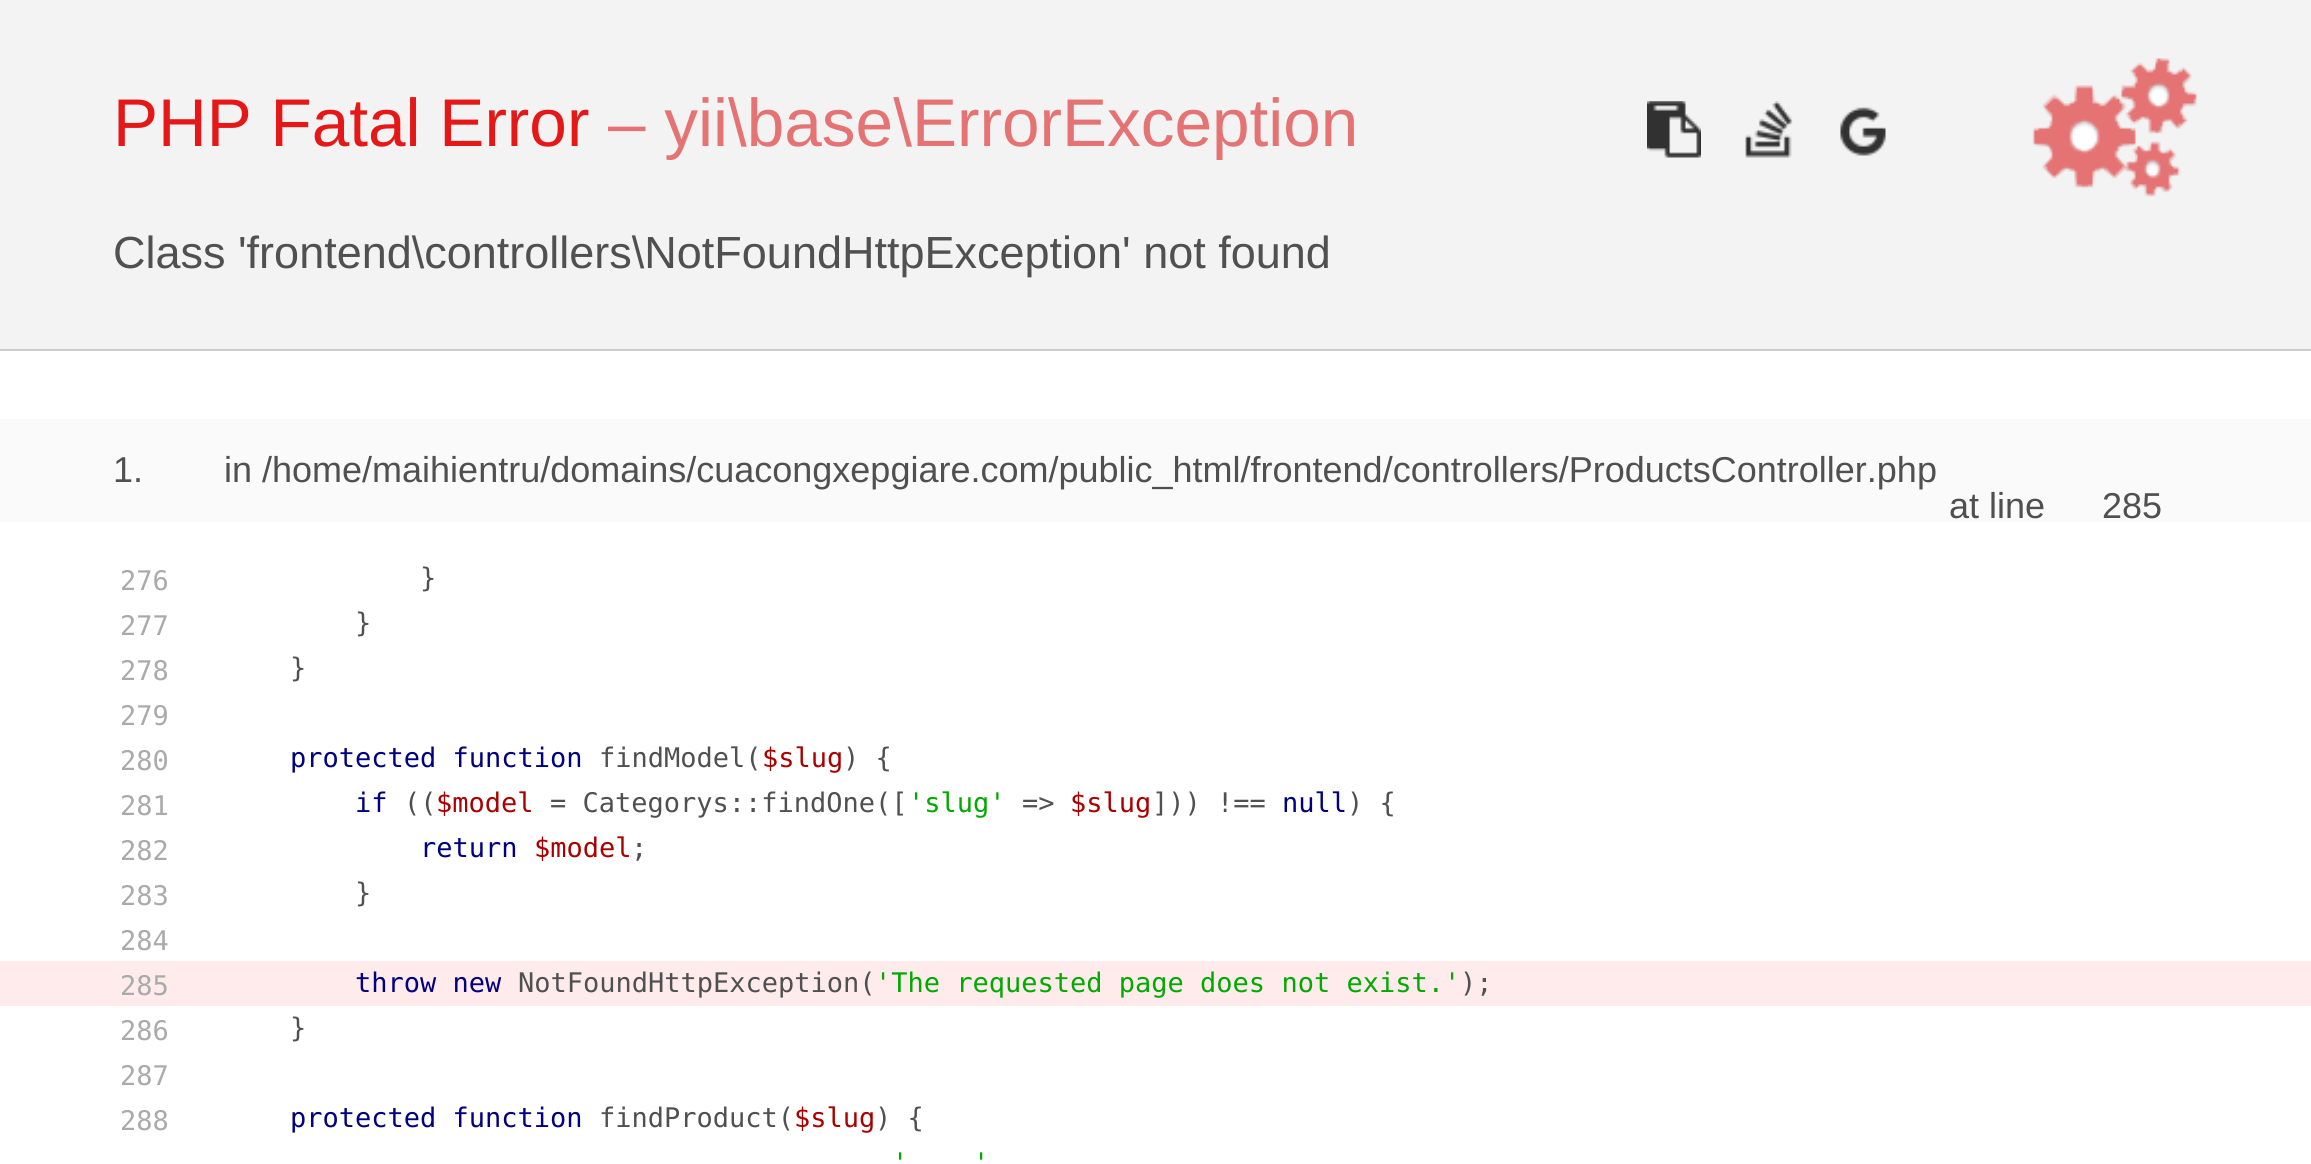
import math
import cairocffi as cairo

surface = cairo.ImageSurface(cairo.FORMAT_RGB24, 2311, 1164)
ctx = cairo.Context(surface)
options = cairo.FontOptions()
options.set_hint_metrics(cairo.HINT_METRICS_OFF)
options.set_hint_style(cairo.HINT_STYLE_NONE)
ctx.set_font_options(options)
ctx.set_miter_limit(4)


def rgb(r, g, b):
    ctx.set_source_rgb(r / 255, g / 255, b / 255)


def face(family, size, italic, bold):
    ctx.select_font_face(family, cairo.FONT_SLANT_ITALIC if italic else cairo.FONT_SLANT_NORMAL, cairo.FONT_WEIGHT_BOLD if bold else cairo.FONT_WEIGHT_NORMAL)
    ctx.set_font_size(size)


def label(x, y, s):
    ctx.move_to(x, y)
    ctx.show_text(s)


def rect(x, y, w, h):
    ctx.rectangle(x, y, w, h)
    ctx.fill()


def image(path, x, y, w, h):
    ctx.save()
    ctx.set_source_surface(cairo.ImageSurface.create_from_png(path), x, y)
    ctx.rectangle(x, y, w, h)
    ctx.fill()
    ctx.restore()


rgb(255, 255, 255)
ctx.paint()
rgb(243, 243, 243)
rect(0, 0, 2311, 349)
rgb(204, 204, 204)
rect(0, 349, 2311, 2)
face('Liberation Sans', 67.5, 0, 0)
rgb(229, 23, 23)
label(113, 146, 'PHP Fatal Error')
rgb(229, 115, 115)
label(608, 146, '– yii\\base\\ErrorException')
image('image0.png', 1647, 101, 54, 57)
image('image1.png', 1745, 101, 48, 57)
image('image2.png', 1840, 107, 46, 49)
image('image3.png', 2032, 58, 166, 139)
face('Liberation Sans', 45, 0, 0)
rgb(80, 80, 80)
label(113, 268, 'Class \'frontend\\controllers\\NotFoundHttpException\' not found')
rgb(250, 250, 250)
rect(0, 419, 2311, 103)
face('Liberation Sans', 36, 0, 0)
rgb(80, 80, 80)
label(113, 482, '1.')
label(224, 482, 'in /home/maihientru/domains/cuacongxepgiare.com/public_html/frontend/controllers/ProductsController.php')
label(1949, 518, 'at line')
label(2102, 518, '285')
face('DejaVu Sans Mono', 27, 0, 0)
rgb(170, 170, 170)
label(120, 590, '276')
rgb(80, 80, 80)
label(420, 587, '}')
rgb(170, 170, 170)
label(120, 635, '277')
rgb(80, 80, 80)
label(355, 632, '}')
rgb(170, 170, 170)
label(120, 680, '278')
rgb(80, 80, 80)
label(290, 677, '}')
rgb(170, 170, 170)
label(120, 725, '279')
label(120, 770, '280')
rgb(0, 0, 128)
label(290, 767, 'protected function')
rgb(80, 80, 80)
label(599, 767, 'findModel(')
rgb(170, 0, 0)
label(762, 767, '$slug')
rgb(80, 80, 80)
label(843, 767, ') {')
rgb(170, 170, 170)
label(120, 815, '281')
rgb(0, 0, 128)
label(355, 812, 'if')
rgb(80, 80, 80)
label(404, 812, '((')
rgb(170, 0, 0)
label(436, 812, '$model')
rgb(80, 80, 80)
label(550, 812, '= Categorys::findOne([')
rgb(0, 170, 0)
label(908, 812, '\'slug\'')
rgb(80, 80, 80)
label(1022, 812, '=>')
rgb(170, 0, 0)
label(1070, 812, '$slug')
rgb(80, 80, 80)
label(1152, 812, '])) !==')
rgb(0, 0, 128)
label(1282, 812, 'null')
rgb(80, 80, 80)
label(1347, 812, ') {')
rgb(170, 170, 170)
label(120, 860, '282')
rgb(0, 0, 128)
label(420, 857, 'return')
rgb(170, 0, 0)
label(534, 857, '$model')
rgb(80, 80, 80)
label(631, 857, ';')
rgb(170, 170, 170)
label(120, 905, '283')
rgb(80, 80, 80)
label(355, 902, '}')
rgb(170, 170, 170)
label(120, 950, '284')
rgb(255, 235, 235)
rect(0, 961, 2311, 45)
rgb(170, 170, 170)
label(120, 995, '285')
rgb(0, 0, 128)
label(355, 992, 'throw new')
rgb(80, 80, 80)
label(518, 992, 'NotFoundHttpException(')
rgb(0, 170, 0)
label(875, 992, '\'The requested page does not exist.\'')
rgb(80, 80, 80)
label(1460, 992, ');')
rgb(170, 170, 170)
label(120, 1040, '286')
rgb(80, 80, 80)
label(290, 1037, '}')
rgb(170, 170, 170)
label(120, 1085, '287')
label(120, 1130, '288')
rgb(0, 0, 128)
label(290, 1127, 'protected function')
rgb(80, 80, 80)
label(599, 1127, 'findProduct(')
rgb(170, 0, 0)
label(794, 1127, '$slug')
rgb(80, 80, 80)
label(875, 1127, ') {')
rgb(0, 170, 0)
label(892, 1172, '\'')
label(973, 1172, '\'')
surface.write_to_png('render.png')
